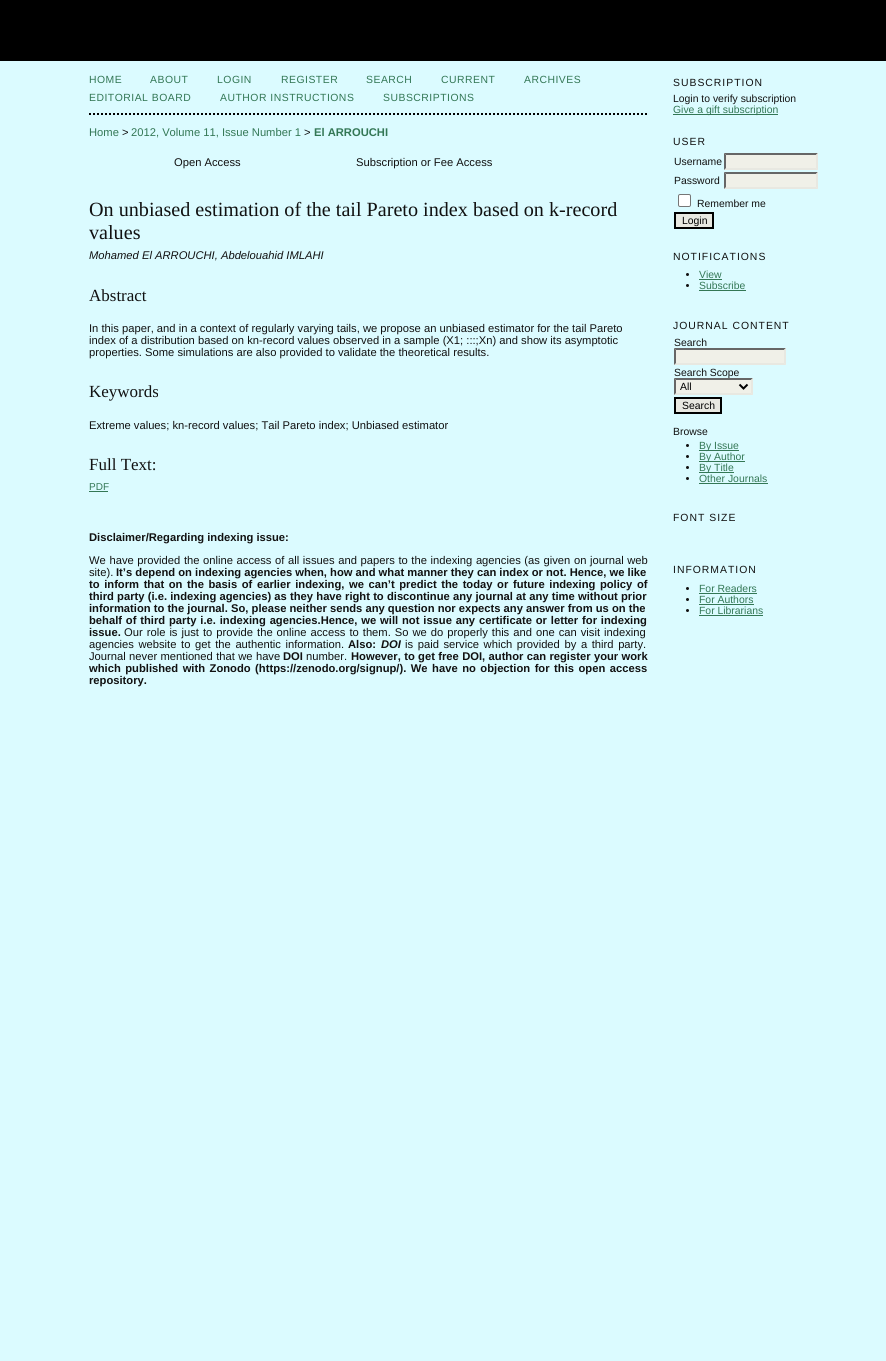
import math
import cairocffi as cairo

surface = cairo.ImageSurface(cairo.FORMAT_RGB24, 886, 1361)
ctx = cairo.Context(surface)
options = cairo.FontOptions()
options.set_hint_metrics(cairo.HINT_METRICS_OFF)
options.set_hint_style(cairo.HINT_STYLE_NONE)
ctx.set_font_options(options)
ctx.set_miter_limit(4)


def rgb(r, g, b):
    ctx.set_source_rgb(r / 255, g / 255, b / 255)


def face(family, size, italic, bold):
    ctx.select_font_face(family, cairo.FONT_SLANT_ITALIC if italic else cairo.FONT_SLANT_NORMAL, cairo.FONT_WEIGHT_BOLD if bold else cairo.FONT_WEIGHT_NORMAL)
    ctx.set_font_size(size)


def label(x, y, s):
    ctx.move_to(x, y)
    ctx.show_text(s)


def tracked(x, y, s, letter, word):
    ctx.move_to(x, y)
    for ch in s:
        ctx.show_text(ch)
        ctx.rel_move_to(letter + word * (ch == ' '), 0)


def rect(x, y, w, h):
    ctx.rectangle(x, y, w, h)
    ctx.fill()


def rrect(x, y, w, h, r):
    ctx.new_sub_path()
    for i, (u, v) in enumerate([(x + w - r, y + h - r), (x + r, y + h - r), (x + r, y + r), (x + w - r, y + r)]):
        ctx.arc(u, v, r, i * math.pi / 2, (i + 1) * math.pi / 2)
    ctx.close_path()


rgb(219, 251, 255)
ctx.paint()
rgb(0, 0, 0)
rect(0, 0, 886, 61)
ctx.new_path()
ctx.move_to(89, 114)
ctx.line_to(647, 114)
ctx.set_dash([2, 2])
ctx.stroke()
face('Liberation Sans', 10.4, 0, 0)
rgb(51, 119, 85)
tracked(89, 83, 'HOME', 0.5, 0)
tracked(150, 83, 'ABOUT', 0.5, 0)
tracked(217, 83, 'LOGIN', 0.5, 0)
tracked(281, 83, 'REGISTER', 0.5, 0)
tracked(366, 83, 'SEARCH', 0.5, 0)
tracked(441, 83, 'CURRENT', 0.5, 0)
tracked(524, 83, 'ARCHIVES', 0.5, 0)
tracked(89, 101, 'EDITORIAL BOARD', 0.5, 0)
tracked(220, 101, 'AUTHOR INSTRUCTIONS', 0.5, 0)
tracked(383, 101, 'SUBSCRIPTIONS', 0.5, 0)
face('Liberation Sans', 11.2, 0, 0)
label(89, 136, 'Home')
rgb(17, 17, 17)
label(122, 136, '>')
rgb(51, 119, 85)
label(131, 136, '2012, Volume 11, Issue Number 1')
rgb(17, 17, 17)
label(304, 136, '>')
face('Liberation Sans', 11.2, 0, 1)
rgb(51, 119, 85)
label(314, 136, 'El ARROUCHI')
face('Liberation Sans', 11.2, 0, 0)
rgb(17, 17, 17)
label(174, 166, 'Open Access')
label(356, 166, 'Subscription or Fee Access')
face('Liberation Serif', 20.15, 0, 0)
label(89, 216, 'On unbiased estimation of the tail Pareto index based on k-record')
label(89, 239, 'values')
face('Liberation Sans', 11.2, 1, 0)
label(89, 259, 'Mohamed El ARROUCHI, Abdelouahid IMLAHI')
face('Liberation Serif', 17, 0, 0)
label(89, 301, 'Abstract')
face('Liberation Sans', 11.2, 0, 0)
label(89, 332, 'In this paper, and in a context of regularly varying tails, we propose an unbiased estimator for the tail Pareto')
label(89, 344, 'index of a distribution based on kn-record values observed in a sample (X1; :::;Xn) and show its asymptotic')
label(89, 356, 'properties. Some simulations are also provided to validate the theoretical results.')
face('Liberation Serif', 17, 0, 0)
label(89, 397, 'Keywords')
face('Liberation Sans', 11.2, 0, 0)
label(89, 429, 'Extreme values; kn-record values; Tail Pareto index; Unbiased estimator')
face('Liberation Serif', 17, 0, 0)
label(89, 470, 'Full Text:')
face('Liberation Sans', 10, 0, 0)
rgb(51, 119, 85)
label(89, 490, 'PDF')
rect(89, 491, 19, 1)
face('Liberation Sans', 11.2, 0, 1)
rgb(17, 17, 17)
label(89, 541, 'Disclaimer/Regarding indexing issue:')
face('Liberation Sans', 11.2, 0, 0)
tracked(89, 564, 'We have provided the online access of all issues and papers to the indexing agencies (as given on journal web', 0, 0.5)
label(89, 576, 'site).')
face('Liberation Sans', 11.2, 0, 1)
label(116, 576, 'It’s depend on indexing agencies when, how and what manner they can index or not. Hence, we like')
tracked(89, 588, 'to inform that on the basis of earlier indexing, we can’t predict the today or future indexing policy of', 0, 1.5)
tracked(89, 600, 'third party (i.e. indexing agencies) as they have right to discontinue any journal at any time without prior', 0, 0.1)
label(89, 612, 'information to the journal.')
label(231, 612, 'So, please neither sends any question nor expects any answer from us on the')
tracked(89, 624, 'behalf of third party i.e. indexing agencies.Hence, we will not issue any certificate or letter for indexing', 0, 0.75)
label(89, 636, 'issue.')
face('Liberation Sans', 11.2, 0, 0)
tracked(124, 636, 'Our role is just to provide the online access to them. So we do properly this and one can visit indexing', 0, 0.9)
tracked(89, 648, 'agencies website to get the authentic information.', 0, 1.5)
face('Liberation Sans', 11.2, 0, 1)
label(348, 648, 'Also:')
face('Liberation Sans', 11.2, 1, 1)
label(381, 648, 'DOI')
face('Liberation Sans', 11.2, 0, 0)
tracked(405, 648, 'is paid service which provided by a third party.', 0, 1.5)
tracked(89, 660, 'Journal never mentioned that we have', 0, 0.25)
face('Liberation Sans', 11.2, 0, 1)
label(283, 660, 'DOI')
face('Liberation Sans', 11.2, 0, 0)
label(306, 660, 'number.')
face('Liberation Sans', 11.2, 0, 1)
tracked(351, 660, 'However, to get free DOI, author can register your work', 0, 0.25)
tracked(89, 672, 'which published with Zonodo (https://zenodo.org/signup/). We have no objection for this open access', 0, 1.4)
label(89, 684, 'repository.')
face('Liberation Sans', 10.4, 0, 0)
tracked(673, 86, 'SUBSCRIPTION', 1, 0)
label(673, 102, 'Login to verify subscription')
rgb(51, 119, 85)
rect(673, 114, 105, 1)
label(673, 113, 'Give a gift subscription')
rgb(17, 17, 17)
tracked(673, 145, 'USER', 1, 0)
label(674, 165, 'Username')
rgb(240, 240, 232)
rect(724, 153, 94, 17)
rgb(102, 102, 102)
ctx.new_path()
ctx.move_to(724, 153)
ctx.line_to(818, 153)
ctx.line_to(816, 155)
ctx.line_to(726, 155)
ctx.close_path()
ctx.fill()
rgb(232, 232, 225)
ctx.new_path()
ctx.move_to(818, 153)
ctx.line_to(818, 170)
ctx.line_to(816, 168)
ctx.line_to(816, 155)
ctx.close_path()
ctx.fill()
ctx.new_path()
ctx.move_to(818, 170)
ctx.line_to(724, 170)
ctx.line_to(726, 168)
ctx.line_to(816, 168)
ctx.close_path()
ctx.fill()
rgb(102, 102, 102)
ctx.new_path()
ctx.move_to(724, 170)
ctx.line_to(724, 153)
ctx.line_to(726, 155)
ctx.line_to(726, 168)
ctx.close_path()
ctx.fill()
rgb(17, 17, 17)
label(674, 184, 'Password')
rgb(240, 240, 232)
rect(724, 172, 94, 17)
rgb(102, 102, 102)
ctx.new_path()
ctx.move_to(724, 172)
ctx.line_to(818, 172)
ctx.line_to(816, 174)
ctx.line_to(726, 174)
ctx.close_path()
ctx.fill()
rgb(232, 232, 225)
ctx.new_path()
ctx.move_to(818, 172)
ctx.line_to(818, 189)
ctx.line_to(816, 187)
ctx.line_to(816, 174)
ctx.close_path()
ctx.fill()
ctx.new_path()
ctx.move_to(818, 189)
ctx.line_to(724, 189)
ctx.line_to(726, 187)
ctx.line_to(816, 187)
ctx.close_path()
ctx.fill()
rgb(102, 102, 102)
ctx.new_path()
ctx.move_to(724, 189)
ctx.line_to(724, 172)
ctx.line_to(726, 174)
ctx.line_to(726, 187)
ctx.close_path()
ctx.fill()
rgb(255, 255, 255)
rrect(678.5, 194.5, 12, 12, 1.5)
ctx.fill_preserve()
rgb(118, 118, 118)
ctx.set_line_width(1)
ctx.set_dash([])
ctx.stroke()
rgb(17, 17, 17)
label(697, 207, 'Remember me')
rgb(232, 232, 225)
ctx.rectangle(675, 213, 38, 15)
ctx.fill_preserve()
rgb(0, 0, 0)
ctx.set_line_width(2)
ctx.stroke()
label(682, 224, 'Login')
rgb(17, 17, 17)
tracked(673, 260, 'NOTIFICATIONS', 1, 0)
ctx.new_path()
ctx.arc(687.5, 274.5, 1.5, 0, 2 * math.pi)
ctx.fill()
rgb(51, 119, 85)
label(699, 278, 'View')
rect(699, 279, 23, 1)
rgb(17, 17, 17)
ctx.new_path()
ctx.arc(687.5, 285.5, 1.5, 0, 2 * math.pi)
ctx.fill()
rgb(51, 119, 85)
label(699, 289, 'Subscribe')
rect(699, 290, 47, 1)
rgb(17, 17, 17)
tracked(673, 329, 'JOURNAL CONTENT', 1, 0)
label(674, 346, 'Search')
rgb(240, 240, 232)
rect(674, 348, 112, 17)
rgb(102, 102, 102)
ctx.new_path()
ctx.move_to(674, 348)
ctx.line_to(786, 348)
ctx.line_to(784, 350)
ctx.line_to(676, 350)
ctx.close_path()
ctx.fill()
rgb(232, 232, 225)
ctx.new_path()
ctx.move_to(786, 348)
ctx.line_to(786, 365)
ctx.line_to(784, 363)
ctx.line_to(784, 350)
ctx.close_path()
ctx.fill()
ctx.new_path()
ctx.move_to(786, 365)
ctx.line_to(674, 365)
ctx.line_to(676, 363)
ctx.line_to(784, 363)
ctx.close_path()
ctx.fill()
rgb(102, 102, 102)
ctx.new_path()
ctx.move_to(674, 365)
ctx.line_to(674, 348)
ctx.line_to(676, 350)
ctx.line_to(676, 363)
ctx.close_path()
ctx.fill()
rgb(17, 17, 17)
label(674, 376, 'Search Scope')
rgb(240, 240, 232)
rect(674, 378, 79, 17)
rgb(102, 102, 102)
ctx.new_path()
ctx.move_to(674, 378)
ctx.line_to(753, 378)
ctx.line_to(751, 380)
ctx.line_to(676, 380)
ctx.close_path()
ctx.fill()
rgb(232, 232, 225)
ctx.new_path()
ctx.move_to(753, 378)
ctx.line_to(753, 395)
ctx.line_to(751, 393)
ctx.line_to(751, 380)
ctx.close_path()
ctx.fill()
ctx.new_path()
ctx.move_to(753, 395)
ctx.line_to(674, 395)
ctx.line_to(676, 393)
ctx.line_to(751, 393)
ctx.close_path()
ctx.fill()
rgb(102, 102, 102)
ctx.new_path()
ctx.move_to(674, 395)
ctx.line_to(674, 378)
ctx.line_to(676, 380)
ctx.line_to(676, 393)
ctx.close_path()
ctx.fill()
ctx.new_path()
ctx.move_to(739.5, 384.5)
ctx.line_to(743.5, 388.5)
ctx.line_to(747.5, 384.5)
rgb(0, 0, 0)
ctx.stroke()
label(680, 390, 'All')
rgb(232, 232, 225)
ctx.rectangle(675, 398, 46, 15)
ctx.fill_preserve()
rgb(0, 0, 0)
ctx.stroke()
label(682, 409, 'Search')
rgb(17, 17, 17)
label(673, 435, 'Browse')
ctx.new_path()
ctx.arc(687.5, 445.5, 1.5, 0, 2 * math.pi)
ctx.fill()
rgb(51, 119, 85)
rect(699, 450, 40, 1)
label(699, 449, 'By Issue')
rgb(17, 17, 17)
ctx.new_path()
ctx.arc(687.5, 456.5, 1.5, 0, 2 * math.pi)
ctx.fill()
rgb(51, 119, 85)
rect(699, 461, 46, 1)
label(699, 460, 'By Author')
rgb(17, 17, 17)
ctx.new_path()
ctx.arc(687.5, 467.5, 1.5, 0, 2 * math.pi)
ctx.fill()
rgb(51, 119, 85)
rect(699, 472, 35, 1)
label(699, 471, 'By Title')
rgb(17, 17, 17)
ctx.new_path()
ctx.arc(687.5, 478.5, 1.5, 0, 2 * math.pi)
ctx.fill()
rgb(51, 119, 85)
label(699, 482, 'Other Journals')
rect(699, 483, 69, 1)
rgb(17, 17, 17)
tracked(673, 521, 'FONT SIZE', 1, 0)
tracked(673, 573, 'INFORMATION', 1, 0)
ctx.new_path()
ctx.arc(687.5, 588.5, 1.5, 0, 2 * math.pi)
ctx.fill()
rgb(51, 119, 85)
label(699, 592, 'For Readers')
rect(699, 593, 58, 1)
rgb(17, 17, 17)
ctx.new_path()
ctx.arc(687.5, 599.5, 1.5, 0, 2 * math.pi)
ctx.fill()
rgb(51, 119, 85)
label(699, 603, 'For Authors')
rect(699, 604, 55, 1)
rgb(17, 17, 17)
ctx.new_path()
ctx.arc(687.5, 610.5, 1.5, 0, 2 * math.pi)
ctx.fill()
rgb(51, 119, 85)
label(699, 614, 'For Librarians')
rect(699, 615, 64, 1)
surface.write_to_png('render.png')
